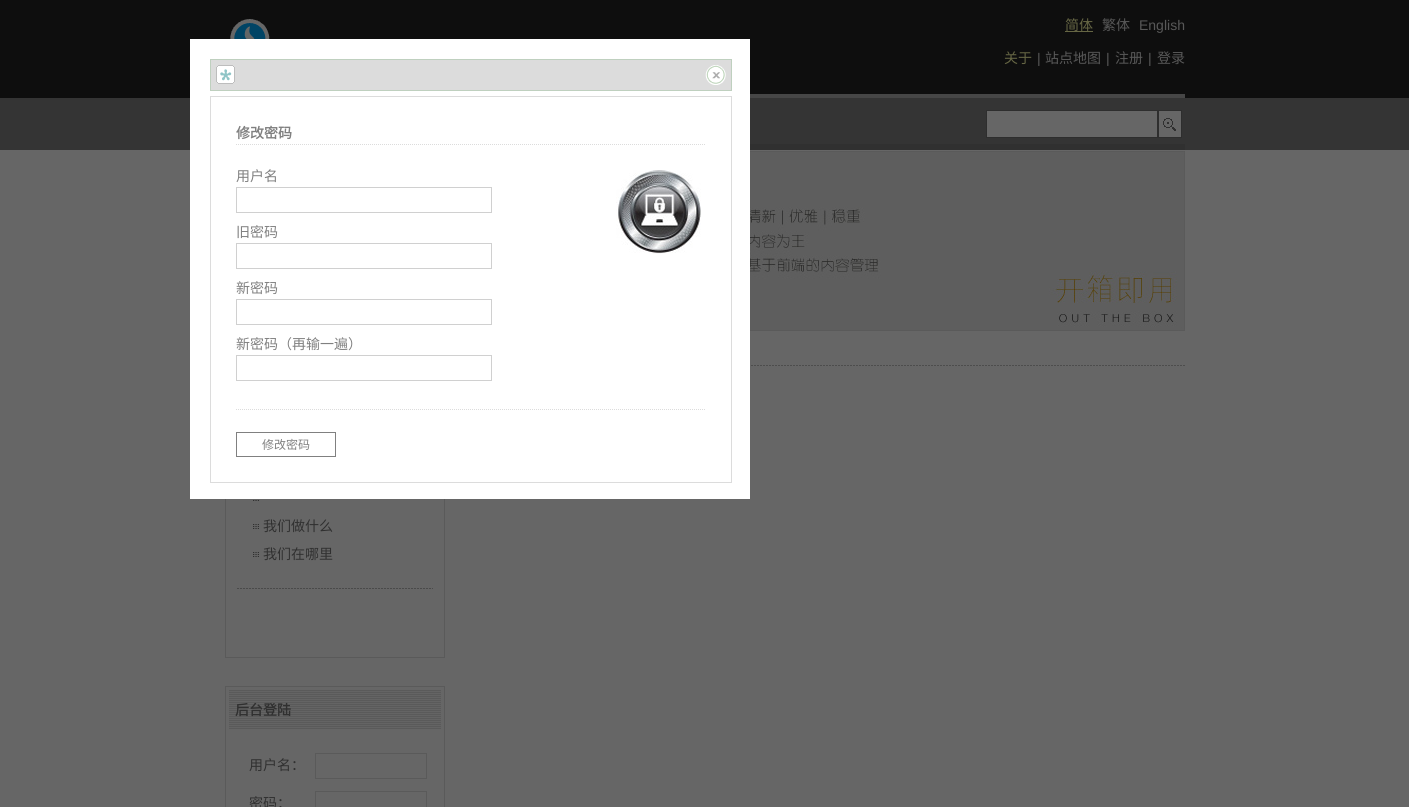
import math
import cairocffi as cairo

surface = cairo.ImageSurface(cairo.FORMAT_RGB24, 1409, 807)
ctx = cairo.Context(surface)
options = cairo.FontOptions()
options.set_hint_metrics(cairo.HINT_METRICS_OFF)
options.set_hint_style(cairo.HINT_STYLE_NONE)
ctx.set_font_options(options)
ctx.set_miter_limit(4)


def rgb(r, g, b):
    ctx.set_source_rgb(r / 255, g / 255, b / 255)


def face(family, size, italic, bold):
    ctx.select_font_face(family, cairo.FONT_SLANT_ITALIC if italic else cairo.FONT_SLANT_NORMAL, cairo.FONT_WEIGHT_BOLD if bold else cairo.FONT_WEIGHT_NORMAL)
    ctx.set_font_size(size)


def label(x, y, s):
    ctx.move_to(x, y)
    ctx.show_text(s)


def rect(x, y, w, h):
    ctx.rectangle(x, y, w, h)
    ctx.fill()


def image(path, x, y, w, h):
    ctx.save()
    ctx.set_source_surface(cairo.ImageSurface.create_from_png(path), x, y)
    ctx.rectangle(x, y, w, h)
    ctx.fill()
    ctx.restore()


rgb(102, 102, 102)
ctx.paint()
rgb(14, 14, 14)
rect(0, 0, 1409, 94)
image('image0.png', 230, 19, 40, 20)
rgb(102, 102, 68)
rect(1065, 31, 28, 1)
face('Noto Sans CJK SC', 14, 0, 0)
label(1065, 30, '简体')
rgb(88, 88, 88)
label(1102, 30, '繁体')
face('Liberation Sans', 14, 0, 0)
label(1139, 30, 'English')
face('Noto Sans CJK SC', 14, 0, 0)
rgb(102, 102, 68)
label(1004, 63, '关于')
face('Liberation Sans', 14, 0, 0)
rgb(88, 88, 88)
label(1037, 63, '|')
face('Noto Sans CJK SC', 14, 0, 0)
label(1045, 63, '站点地图')
face('Liberation Sans', 14, 0, 0)
label(1106, 63, '|')
face('Noto Sans CJK SC', 14, 0, 0)
label(1115, 63, '注册')
face('Liberation Sans', 14, 0, 0)
label(1148, 63, '|')
face('Noto Sans CJK SC', 14, 0, 0)
label(1157, 63, '登录')
rgb(14, 14, 14)
rect(0, 94, 190, 4)
rgb(70, 70, 70)
rect(750, 94, 435, 4)
rgb(14, 14, 14)
rect(1185, 94, 224, 4)
rgb(52, 52, 52)
rect(0, 98, 190, 52)
rect(750, 98, 435, 46)
rgb(48, 48, 48)
rect(750, 144, 435, 6)
rgb(102, 102, 102)
ctx.rectangle(986.5, 110.5, 171, 27)
ctx.fill_preserve()
rgb(46, 46, 46)
ctx.set_line_width(1)
ctx.stroke()
rgb(102, 102, 102)
rect(1159, 111, 22, 26)
image('image1.png', 1163, 118, 13, 13)
ctx.rectangle(1158.5, 110.5, 23, 27)
rgb(46, 46, 46)
ctx.stroke()
rgb(52, 52, 52)
rect(1185, 98, 224, 52)
image('image2.png', 750, 151, 435, 180)
image('image3.png', 750, 365, 435, 1)
ctx.rectangle(225.5, 377.5, 219, 280)
rgb(90, 90, 90)
ctx.stroke()
image('image4.png', 237, 588, 196, 1)
image('image5.png', 253, 499, 6, 2)
image('image6.png', 253, 524, 6, 5)
rgb(48, 48, 48)
label(263, 531, '我们做什么')
image('image6.png', 253, 552, 6, 5)
label(263, 559, '我们在哪里')
ctx.rectangle(225.5, 686.5, 219, 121)
rgb(90, 90, 90)
ctx.stroke()
image('image7.png', 229, 690, 212, 39)
face('Noto Sans CJK SC', 14, 0, 1)
rgb(48, 48, 48)
label(235, 715, '后台登陆')
face('Noto Sans CJK SC', 14, 0, 0)
label(249, 770, '用户名：')
ctx.rectangle(315.5, 753.5, 111, 25)
rgb(90, 90, 90)
ctx.stroke()
rgb(48, 48, 48)
label(249, 808, '密码：')
ctx.rectangle(315.5, 791.5, 111, 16)
rgb(90, 90, 90)
ctx.stroke()
rgb(255, 255, 255)
rect(190, 39, 560, 460)
rgb(220, 220, 220)
ctx.rectangle(210.5, 59.5, 521, 31)
ctx.fill_preserve()
rgb(191, 208, 191)
ctx.stroke()
image('image8.png', 216, 65, 19, 19)
image('image9.png', 705, 65, 21, 20)
ctx.rectangle(210.5, 96.5, 521, 386)
rgb(220, 220, 220)
ctx.stroke()
face('Noto Sans CJK SC', 14, 0, 1)
rgb(128, 128, 128)
label(236, 138, '修改密码')
ctx.new_path()
ctx.move_to(236, 144.5)
ctx.line_to(706, 144.5)
rgb(220, 220, 220)
ctx.set_dash([1, 1])
ctx.stroke()
face('Noto Sans CJK SC', 14, 0, 0)
rgb(128, 128, 128)
label(236, 181, '用户名')
image('image10.png', 616, 170, 85, 84)
ctx.rectangle(236.5, 187.5, 255, 25)
rgb(208, 208, 208)
ctx.set_dash([])
ctx.stroke()
rgb(128, 128, 128)
label(236, 237, '旧密码')
ctx.rectangle(236.5, 243.5, 255, 25)
rgb(208, 208, 208)
ctx.stroke()
rgb(128, 128, 128)
label(236, 293, '新密码')
ctx.rectangle(236.5, 299.5, 255, 25)
rgb(208, 208, 208)
ctx.stroke()
rgb(128, 128, 128)
label(236, 349, '新密码（再输一遍）')
ctx.rectangle(236.5, 355.5, 255, 25)
rgb(208, 208, 208)
ctx.stroke()
ctx.new_path()
ctx.move_to(236, 409.5)
ctx.line_to(706, 409.5)
rgb(220, 220, 220)
ctx.set_dash([1, 1])
ctx.stroke()
ctx.rectangle(236.5, 432.5, 99, 24)
rgb(128, 128, 128)
ctx.set_dash([])
ctx.stroke()
face('Noto Sans CJK SC', 12, 0, 0)
label(262, 449, '修改密码')
surface.write_to_png('render.png')
